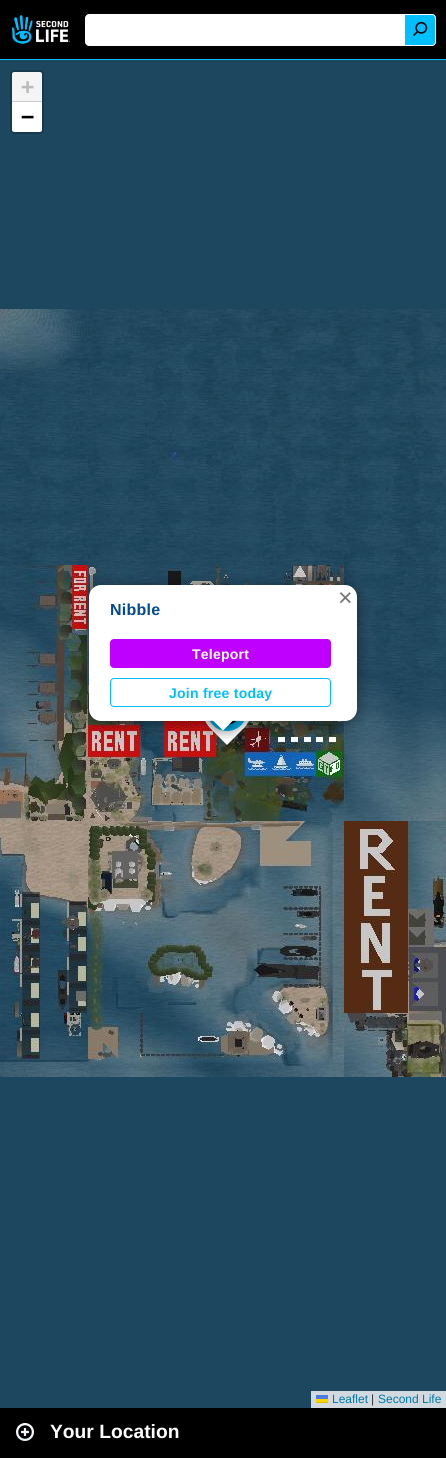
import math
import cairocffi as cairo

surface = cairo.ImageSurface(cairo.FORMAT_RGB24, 446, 1458)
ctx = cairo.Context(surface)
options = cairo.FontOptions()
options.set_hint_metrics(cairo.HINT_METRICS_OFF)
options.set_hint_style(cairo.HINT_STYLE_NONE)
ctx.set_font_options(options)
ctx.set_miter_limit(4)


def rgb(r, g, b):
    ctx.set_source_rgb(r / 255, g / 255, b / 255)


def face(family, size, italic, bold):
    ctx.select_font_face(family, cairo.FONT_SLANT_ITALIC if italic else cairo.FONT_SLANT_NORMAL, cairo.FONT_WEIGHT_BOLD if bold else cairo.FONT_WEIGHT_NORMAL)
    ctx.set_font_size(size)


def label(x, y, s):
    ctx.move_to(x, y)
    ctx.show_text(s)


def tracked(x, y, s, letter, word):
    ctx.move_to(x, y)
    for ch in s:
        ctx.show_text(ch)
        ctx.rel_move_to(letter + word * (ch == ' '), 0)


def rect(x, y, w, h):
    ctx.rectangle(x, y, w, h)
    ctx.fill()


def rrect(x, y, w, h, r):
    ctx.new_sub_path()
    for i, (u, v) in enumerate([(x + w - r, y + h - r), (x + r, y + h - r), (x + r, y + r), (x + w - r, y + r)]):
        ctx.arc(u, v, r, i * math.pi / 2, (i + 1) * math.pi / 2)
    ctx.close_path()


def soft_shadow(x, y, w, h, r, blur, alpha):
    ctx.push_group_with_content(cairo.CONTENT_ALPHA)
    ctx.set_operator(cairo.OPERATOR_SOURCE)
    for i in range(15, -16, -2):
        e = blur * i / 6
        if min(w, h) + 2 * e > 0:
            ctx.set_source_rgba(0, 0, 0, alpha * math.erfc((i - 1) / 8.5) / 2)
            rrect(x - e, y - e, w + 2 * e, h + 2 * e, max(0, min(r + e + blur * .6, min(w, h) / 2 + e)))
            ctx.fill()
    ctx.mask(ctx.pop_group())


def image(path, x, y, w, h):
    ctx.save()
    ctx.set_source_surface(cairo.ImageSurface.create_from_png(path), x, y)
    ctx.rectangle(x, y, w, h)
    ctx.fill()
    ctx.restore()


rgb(0, 0, 0)
ctx.paint()
rgb(0, 191, 255)
rect(0, 59, 446, 1)
image('image0.png', 12, 15, 58, 29)
rgb(255, 255, 255)
ctx.new_path()
ctx.move_to(89, 14)
ctx.line_to(408, 14)
ctx.line_to(408, 46)
ctx.line_to(89, 46)
ctx.curve_to(87, 46, 85, 44, 85, 42)
ctx.line_to(85, 18)
ctx.curve_to(85, 16, 87, 14, 89, 14)
ctx.close_path()
ctx.fill()
rgb(0, 191, 255)
ctx.new_path()
ctx.move_to(404.5, 14.5)
ctx.line_to(432, 14.5)
ctx.curve_to(434, 14.5, 435.5, 16, 435.5, 18)
ctx.line_to(435.5, 42)
ctx.curve_to(435.5, 44, 434, 45.5, 432, 45.5)
ctx.line_to(404.5, 45.5)
ctx.close_path()
ctx.fill_preserve()
rgb(255, 255, 255)
ctx.set_line_width(1)
ctx.stroke()
image('image1.png', 413, 21, 15, 15)
rgb(29, 71, 95)
rect(0, 60, 446, 1348)
rrect(11, 71, 32, 62, 3)
rgb(23, 57, 76)
ctx.set_line_width(2)
ctx.stroke()
rgb(244, 244, 244)
ctx.new_path()
ctx.move_to(14, 72)
ctx.line_to(40, 72)
ctx.curve_to(41, 72, 42, 73, 42, 74)
ctx.line_to(42, 102)
ctx.line_to(12, 102)
ctx.line_to(12, 74)
ctx.curve_to(12, 73, 13, 72, 14, 72)
ctx.close_path()
ctx.fill()
rgb(204, 204, 204)
rect(12, 101, 30, 1)
face('DejaVu Sans Mono', 22, 0, 1)
rgb(187, 187, 187)
label(21, 94, '+')
rgb(255, 255, 255)
ctx.new_path()
ctx.move_to(12, 102)
ctx.line_to(42, 102)
ctx.line_to(42, 130)
ctx.curve_to(42, 131, 41, 132, 40, 132)
ctx.line_to(14, 132)
ctx.curve_to(13, 132, 12, 131, 12, 130)
ctx.close_path()
ctx.fill()
rgb(0, 0, 0)
label(21, 124, '−')
rgb(210, 218, 223)
rect(311, 1391, 135, 17)
face('Liberation Sans', 12, 0, 0)
rgb(0, 120, 168)
label(332, 1403, 'Leaflet')
rgb(76, 123, 225)
rect(316, 1395, 12, 4)
rgb(255, 213, 0)
rect(316, 1399, 12, 3)
rgb(224, 188, 0)
rect(316, 1402, 12, 1)
rgb(51, 51, 51)
label(371, 1403, '|')
rgb(0, 120, 168)
label(378, 1403, 'Second Life')
image('image2.png', 0, 309, 88, 256)
image('image3.png', 88, 309, 256, 256)
image('image4.png', 344, 309, 102, 256)
image('image5.png', 0, 565, 88, 256)
image('image6.png', 88, 565, 256, 256)
image('image7.png', 344, 565, 102, 256)
image('image8.png', 0, 821, 88, 256)
image('image9.png', 88, 821, 256, 256)
image('image10.png', 344, 821, 102, 256)
image('image11.png', 205, 721, 44, 24)
rgb(0, 0, 0)
soft_shadow(89, 588, 268, 136, 12, 7, 0.4)
rgb(255, 255, 255)
rrect(89, 585, 268, 136, 12)
ctx.fill()
face('Liberation Sans', 25, 0, 0)
rgb(117, 117, 117)
label(338, 606, '×')
face('Liberation Sans', 16, 0, 1)
rgb(1, 74, 142)
tracked(110, 615, 'Nibble', 0.25, 0)
rgb(191, 0, 255)
rrect(110, 639, 221, 29, 4)
ctx.fill()
face('Liberation Sans', 14, 0, 1)
rgb(255, 255, 255)
tracked(192, 659, 'Teleport', 0.25, 0)
rrect(110.5, 678.5, 220, 28, 3.5)
rgb(0, 191, 255)
ctx.set_line_width(1)
ctx.stroke()
tracked(169, 698, 'Join free today', 0.25, 0)
ctx.save()
ctx.rectangle(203, 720, 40, 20)
ctx.clip()
rgb(0, 0, 0)
soft_shadow(215, 713, 17, 17, 0, 7, 0.4)
ctx.restore()
ctx.save()
ctx.rectangle(203, 720, 40, 20)
ctx.clip()
rgb(255, 255, 255)
ctx.new_path()
ctx.move_to(223, 706.5)
ctx.line_to(235, 718.5)
ctx.line_to(223, 730.5)
ctx.line_to(211, 718.5)
ctx.close_path()
ctx.fill()
ctx.restore()
image('image12.png', 16, 1423, 18, 18)
face('Liberation Sans', 19.25, 0, 1)
rgb(255, 255, 255)
label(50, 1438, 'Your Location')
surface.write_to_png('render.png')
